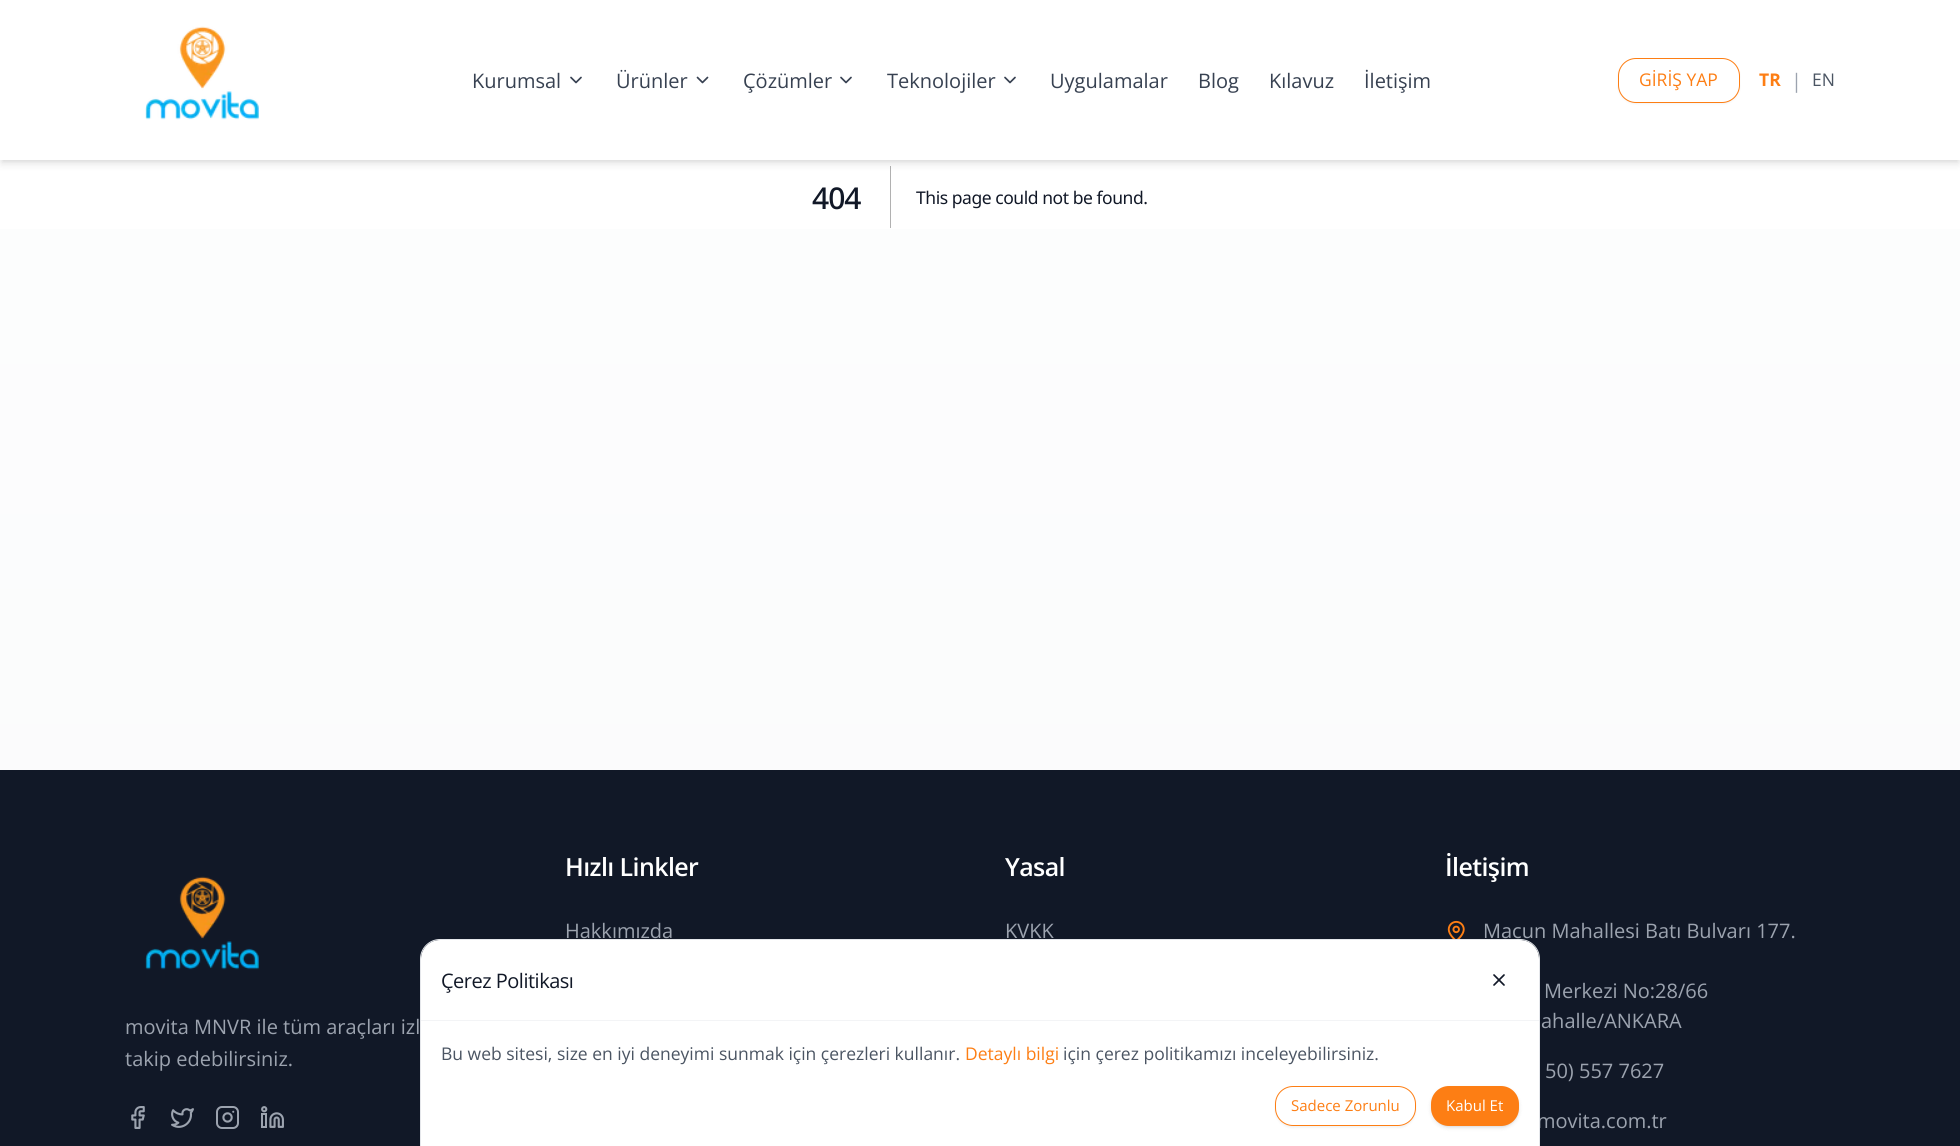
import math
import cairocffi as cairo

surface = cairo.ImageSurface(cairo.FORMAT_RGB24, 1960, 1146)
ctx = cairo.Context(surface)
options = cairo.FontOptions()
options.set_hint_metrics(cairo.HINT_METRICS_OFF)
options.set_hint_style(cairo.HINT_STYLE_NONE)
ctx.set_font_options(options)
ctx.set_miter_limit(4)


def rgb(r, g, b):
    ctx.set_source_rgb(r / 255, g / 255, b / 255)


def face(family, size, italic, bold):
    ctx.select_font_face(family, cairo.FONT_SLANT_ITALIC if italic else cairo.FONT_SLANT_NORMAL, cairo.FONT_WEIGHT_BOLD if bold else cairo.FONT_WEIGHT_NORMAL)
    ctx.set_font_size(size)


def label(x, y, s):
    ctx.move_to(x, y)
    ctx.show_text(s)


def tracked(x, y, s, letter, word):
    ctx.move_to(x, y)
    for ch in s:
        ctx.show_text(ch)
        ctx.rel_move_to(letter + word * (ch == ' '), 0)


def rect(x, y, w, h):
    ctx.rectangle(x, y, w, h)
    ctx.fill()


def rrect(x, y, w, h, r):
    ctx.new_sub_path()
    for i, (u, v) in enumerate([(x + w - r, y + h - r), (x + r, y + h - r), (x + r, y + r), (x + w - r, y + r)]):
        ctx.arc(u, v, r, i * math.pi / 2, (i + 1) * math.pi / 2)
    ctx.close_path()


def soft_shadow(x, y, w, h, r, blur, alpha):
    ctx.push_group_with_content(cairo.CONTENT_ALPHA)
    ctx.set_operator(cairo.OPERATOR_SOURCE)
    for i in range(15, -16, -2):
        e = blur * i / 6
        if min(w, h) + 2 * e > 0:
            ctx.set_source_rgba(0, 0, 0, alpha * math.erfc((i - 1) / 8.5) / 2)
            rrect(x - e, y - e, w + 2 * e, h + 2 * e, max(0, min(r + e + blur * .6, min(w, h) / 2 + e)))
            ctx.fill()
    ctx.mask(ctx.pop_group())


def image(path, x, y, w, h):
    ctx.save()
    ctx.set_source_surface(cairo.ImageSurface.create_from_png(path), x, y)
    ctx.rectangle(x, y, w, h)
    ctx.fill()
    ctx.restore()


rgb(255, 255, 255)
ctx.paint()
gradient = cairo.LinearGradient(980, -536, 980, 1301)
gradient.add_color_stop_rgba(0, 1, 1, 1, 1)
gradient.add_color_stop_rgba(1, 0.976, 0.98, 0.984, 1)
ctx.set_source(gradient)
rect(0, 229, 1960, 541)
rgb(177, 177, 177)
rect(890, 166, 1, 62)
rgb(0, 0, 0)
soft_shadow(3, 5, 1955, 155, 0, 2.5, 0.1)
soft_shadow(1, 6, 1958, 158, 0, 4, 0.1)
rgb(255, 255, 255)
rect(0, 0, 1960, 160)
image('image0.png', 145, 26, 114, 94)
face('Open Sans', 20, 0, 0)
rgb(55, 65, 81)
label(472, 88, 'Kurumsal')
ctx.new_path()
ctx.move_to(571, 77.5)
ctx.line_to(576, 82.5)
ctx.line_to(581, 77.5)
ctx.set_line_width(1.7)
ctx.set_line_cap(cairo.LINE_CAP_ROUND)
ctx.set_line_join(cairo.LINE_JOIN_ROUND)
ctx.stroke()
label(616, 88, 'Ürünler')
ctx.new_path()
ctx.move_to(697.5, 77.5)
ctx.line_to(702.5, 82.5)
ctx.line_to(707.5, 77.5)
ctx.stroke()
label(743, 88, 'Çözümler')
ctx.new_path()
ctx.move_to(841, 77.5)
ctx.line_to(846, 82.5)
ctx.line_to(851, 77.5)
ctx.stroke()
label(887, 88, 'Teknolojiler')
ctx.new_path()
ctx.move_to(1005, 77.5)
ctx.line_to(1010, 82.5)
ctx.line_to(1015, 77.5)
ctx.stroke()
label(1050, 88, 'Uygulamalar')
label(1198, 88, 'Blog')
label(1269, 88, 'Kılavuz')
label(1364, 88, 'İletişim')
rgb(0, 0, 0)
soft_shadow(1618, 59, 122, 45, 18, 1, 0.05)
rgb(255, 255, 255)
rrect(1618.5, 58.5, 121, 44, 17.5)
ctx.fill_preserve()
rgb(253, 126, 20)
ctx.set_line_width(1)
ctx.set_line_cap(cairo.LINE_CAP_BUTT)
ctx.set_line_join(cairo.LINE_JOIN_MITER)
ctx.stroke()
face('Open Sans', 17.5, 0, 0)
label(1639, 86, 'GİRİŞ YAP')
face('Open Sans', 17.5, 0, 1)
label(1759, 86, 'TR')
face('Open Sans', 20, 0, 0)
rgb(156, 163, 175)
label(1791, 88, '|')
face('Open Sans', 17.5, 0, 0)
rgb(75, 85, 99)
label(1812, 86, 'EN')
face('Noto Sans Medium', 30, 0, 0)
rgb(17, 24, 39)
tracked(812, 209, '404', -1, 0)
face('Noto Sans', 17.5, 0, 0)
tracked(916, 204, 'This page could not be found.', -0.45, 0)
rect(0, 770, 1960, 376)
face('Open Sans SemiBold', 25, 0, 0)
rgb(255, 255, 255)
tracked(565, 876, 'Hızlı Linkler', -0.6, 0)
face('Open Sans', 20, 0, 0)
rgb(156, 163, 175)
label(565, 938, 'Hakkımızda')
face('Open Sans SemiBold', 25, 0, 0)
rgb(255, 255, 255)
tracked(1005, 876, 'Yasal', -0.6, 0)
face('Open Sans', 20, 0, 0)
rgb(156, 163, 175)
label(1005, 938, 'KVKK')
face('Open Sans SemiBold', 25, 0, 0)
rgb(255, 255, 255)
tracked(1445, 876, 'İletişim', -0.6, 0)
image('image1.png', 1447, 920, 18, 19)
face('Open Sans', 20, 0, 0)
rgb(156, 163, 175)
label(1483, 938, 'Macun Mahallesi Batı Bulvarı 177.')
label(1544, 998, 'Merkezi No:28/66')
label(1541, 1028, 'ahalle/ANKARA')
label(1545, 1078, '50) 557 7627')
label(1537, 1128, 'movita.com.tr')
image('image2.png', 145, 876, 114, 94)
label(125, 1034, 'movita MNVR ile tüm araçları izl')
label(125, 1066, 'takip edebilirsiniz.')
image('image3.png', 131, 1106, 14, 23)
image('image4.png', 171, 1108, 23, 20)
image('image5.png', 216, 1106, 23, 23)
image('image6.png', 261, 1106, 23, 22)
rgb(255, 255, 255)
ctx.new_path()
ctx.move_to(440, 940)
ctx.line_to(1520, 940)
ctx.curve_to(1530.5, 940, 1539, 948.5, 1539, 959)
ctx.line_to(1539, 1146)
ctx.line_to(421, 1146)
ctx.line_to(421, 959)
ctx.curve_to(421, 948.5, 429.5, 940, 440, 940)
ctx.close_path()
ctx.fill()
rgb(229, 231, 235)
ctx.set_fill_rule(cairo.FILL_RULE_EVEN_ODD)
ctx.new_path()
ctx.move_to(440, 939)
ctx.line_to(1520, 939)
ctx.curve_to(1531, 939, 1540, 948, 1540, 959)
ctx.line_to(1540, 1146)
ctx.line_to(420, 1146)
ctx.line_to(420, 959)
ctx.curve_to(420, 948, 429, 939, 440, 939)
ctx.close_path()
ctx.move_to(440, 940)
ctx.line_to(1520, 940)
ctx.curve_to(1530, 940, 1539, 948, 1539, 959)
ctx.line_to(1539, 1146)
ctx.line_to(421, 1146)
ctx.line_to(421, 959)
ctx.curve_to(421, 948, 430, 940, 440, 940)
ctx.close_path()
ctx.fill()
rgb(243, 244, 246)
rect(421, 1020, 1118, 1)
rgb(17, 24, 39)
tracked(441, 988, 'Çerez Politikası', -0.5, 0)
ctx.new_path()
ctx.move_to(1504, 975)
ctx.line_to(1494, 985)
ctx.move_to(1494, 975)
ctx.line_to(1504, 985)
ctx.set_line_width(1.7)
ctx.set_line_cap(cairo.LINE_CAP_ROUND)
ctx.set_line_join(cairo.LINE_JOIN_ROUND)
ctx.stroke()
face('Open Sans', 17.5, 0, 0)
rgb(75, 85, 99)
label(441, 1060, 'Bu web sitesi, size en iyi deneyimi sunmak için çerezleri kullanır.')
rgb(253, 126, 20)
label(965, 1060, 'Detaylı bilgi')
rgb(75, 85, 99)
label(1063, 1060, 'için çerez politikamızı inceleyebilirsiniz.')
ctx.save()
ctx.new_path()
ctx.move_to(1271, 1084)
ctx.line_to(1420, 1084)
ctx.line_to(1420, 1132)
ctx.line_to(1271, 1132)
ctx.close_path()
ctx.move_to(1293, 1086)
ctx.line_to(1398, 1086)
ctx.curve_to(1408, 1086, 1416, 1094, 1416, 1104)
ctx.line_to(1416, 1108)
ctx.curve_to(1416, 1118, 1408, 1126, 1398, 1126)
ctx.line_to(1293, 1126)
ctx.curve_to(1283, 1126, 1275, 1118, 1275, 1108)
ctx.line_to(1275, 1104)
ctx.curve_to(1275, 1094, 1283, 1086, 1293, 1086)
ctx.close_path()
ctx.clip()
rgb(0, 0, 0)
soft_shadow(1275, 1088, 141, 40, 18, 1, 0.05)
ctx.restore()
rrect(1275.5, 1086.5, 140, 39, 17.5)
rgb(253, 126, 20)
ctx.set_line_width(1)
ctx.set_line_cap(cairo.LINE_CAP_BUTT)
ctx.set_line_join(cairo.LINE_JOIN_MITER)
ctx.stroke()
face('Open Sans', 15, 0, 0)
label(1291, 1111, 'Sadece Zorunlu')
rgb(0, 0, 0)
soft_shadow(1433, 1089, 85, 37, 16, 1, 0.1)
soft_shadow(1431, 1088, 88, 40, 18, 2, 0.1)
rgb(253, 126, 20)
rrect(1431, 1086, 88, 40, 18)
ctx.fill()
rgb(255, 255, 255)
label(1446, 1111, 'Kabul Et')
surface.write_to_png('render.png')
